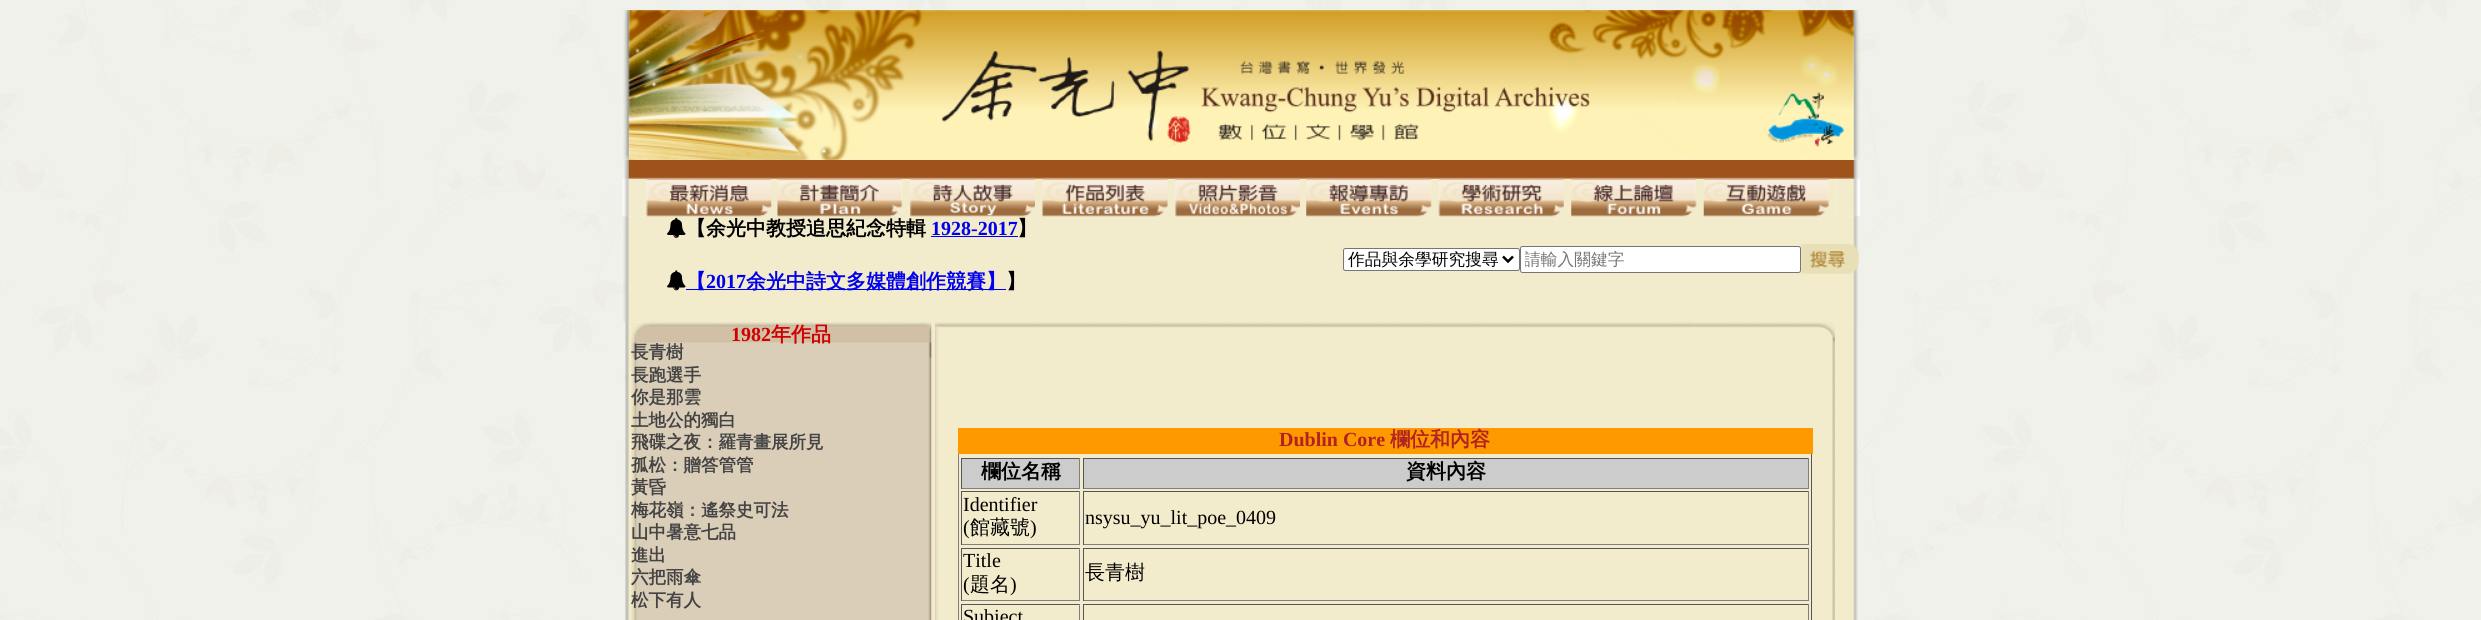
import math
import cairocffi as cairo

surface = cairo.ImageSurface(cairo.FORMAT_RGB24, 2481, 620)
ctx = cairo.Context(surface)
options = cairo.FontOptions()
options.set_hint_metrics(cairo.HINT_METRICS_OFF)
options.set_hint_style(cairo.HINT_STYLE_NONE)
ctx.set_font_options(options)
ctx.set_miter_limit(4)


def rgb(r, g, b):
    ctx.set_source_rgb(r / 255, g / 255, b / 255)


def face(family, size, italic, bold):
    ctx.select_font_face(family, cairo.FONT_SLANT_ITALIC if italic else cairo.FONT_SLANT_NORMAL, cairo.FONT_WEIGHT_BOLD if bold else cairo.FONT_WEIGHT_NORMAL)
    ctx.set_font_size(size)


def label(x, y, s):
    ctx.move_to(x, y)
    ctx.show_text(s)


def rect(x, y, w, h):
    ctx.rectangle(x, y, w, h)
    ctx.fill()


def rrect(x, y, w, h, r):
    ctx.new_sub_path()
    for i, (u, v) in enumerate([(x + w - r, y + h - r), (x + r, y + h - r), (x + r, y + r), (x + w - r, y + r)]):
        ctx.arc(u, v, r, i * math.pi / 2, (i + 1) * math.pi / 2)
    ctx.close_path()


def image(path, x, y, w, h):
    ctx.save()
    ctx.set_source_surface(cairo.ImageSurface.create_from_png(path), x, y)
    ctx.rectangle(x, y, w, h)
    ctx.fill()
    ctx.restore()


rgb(255, 255, 255)
ctx.paint()
image('image0.png', 0, 0, 2481, 620)
image('image1.png', 623, 10, 1237, 150)
image('image3.png', 622, 178, 24, 39)
rgb(242, 235, 204)
rect(646, 178, 1191, 39)
image('image13.png', 1836, 178, 24, 39)
image('image2.png', 624, 160, 1234, 19)
image('image14.png', 623, 216, 1235, 107)
image('image4.png', 646, 178, 126, 39)
image('image5.png', 777, 178, 126, 39)
image('image6.png', 910, 178, 125, 39)
image('image7.png', 1042, 178, 126, 39)
image('image8.png', 1175, 178, 125, 39)
image('image9.png', 1306, 178, 126, 39)
image('image10.png', 1438, 178, 126, 39)
image('image11.png', 1571, 178, 126, 39)
image('image12.png', 1703, 178, 126, 39)
image('image15.png', 667, 217, 19, 21)
face('WenQuanYi Zen Hei', 20, 0, 1)
rgb(0, 0, 0)
label(686, 235, '【余光中教授追思紀念特輯')
face('Liberation Serif', 20, 0, 1)
rgb(0, 0, 238)
label(931, 235, '1928-2017')
rect(931, 236, 87, 1)
face('WenQuanYi Zen Hei', 20, 0, 1)
rgb(0, 0, 0)
label(1017, 235, '】')
image('image16.png', 667, 270, 19, 21)
rgb(0, 0, 238)
rect(686, 289, 320, 1)
label(686, 288, '【')
face('Liberation Serif', 20, 0, 1)
label(706, 288, '2017')
face('WenQuanYi Zen Hei', 20, 0, 1)
label(746, 288, '余光中詩文多媒體創作競賽】')
rgb(0, 0, 0)
label(1006, 288, '】')
rgb(255, 255, 255)
rrect(1343.5, 248.5, 176, 22, 2)
ctx.fill_preserve()
rgb(118, 118, 118)
ctx.set_line_width(1)
ctx.stroke()
ctx.new_path()
ctx.move_to(1503, 256.5)
ctx.line_to(1508, 261.5)
ctx.line_to(1513, 256.5)
rgb(0, 0, 0)
ctx.set_line_width(2.5)
ctx.stroke()
face('WenQuanYi Zen Hei Medium', 16.75, 0, 0)
label(1348, 265, '作品與余學研究搜尋')
rgb(255, 255, 255)
rrect(1520.5, 246.5, 280, 26, 2)
ctx.fill_preserve()
rgb(118, 118, 118)
ctx.set_line_width(1)
ctx.stroke()
ctx.save()
ctx.rectangle(1525, 249, 271, 21)
ctx.clip()
rgb(117, 117, 117)
label(1524, 265, '請輸入關鍵字')
ctx.restore()
image('image17.png', 1801, 243, 59, 31)
image('image18.png', 625, 322, 1233, 298)
image('image19.png', 631, 322, 301, 36)
face('Liberation Serif', 20, 0, 1)
rgb(208, 0, 0)
label(731, 341, '1982')
image('image20.png', 631, 342, 301, 278)
face('WenQuanYi Zen Hei', 20, 0, 1)
label(771, 341, '年作品')
face('WenQuanYi Zen Hei', 17.5, 0, 1)
rgb(68, 68, 68)
label(631, 358, '長青樹')
label(631, 381, '長跑選手')
label(631, 403, '你是那雲')
label(631, 426, '土地公的獨白')
label(631, 448, '飛碟之夜：羅青畫展所見')
label(631, 471, '孤松：贈答管管')
label(631, 493, '黃昏')
label(631, 516, '梅花嶺：遙祭史可法')
label(631, 538, '山中暑意七品')
label(631, 561, '進出')
label(631, 583, '六把雨傘')
label(631, 606, '松下有人')
image('image21.png', 935, 322, 900, 20)
image('image22.png', 935, 337, 900, 283)
rgb(85, 85, 85)
rect(1811, 454, 1, 166)
rgb(128, 128, 128)
rect(958, 454, 1, 166)
rgb(255, 153, 0)
rect(958, 428, 855, 26)
face('Liberation Serif', 20, 0, 1)
rgb(178, 34, 34)
label(1279, 446, 'Dublin Core')
face('WenQuanYi Zen Hei', 20, 0, 1)
label(1390, 446, '欄位和內容')
rgb(204, 204, 204)
rect(962, 459, 117, 29)
rgb(85, 85, 85)
rect(961, 458, 119, 1)
rgb(128, 128, 128)
rect(1079, 458, 1, 31)
rect(961, 488, 119, 1)
rgb(85, 85, 85)
rect(961, 458, 1, 31)
rgb(0, 0, 0)
label(981, 478, '欄位名稱')
rgb(204, 204, 204)
rect(1084, 459, 724, 29)
rgb(85, 85, 85)
rect(1083, 458, 726, 1)
rgb(128, 128, 128)
rect(1808, 458, 1, 31)
rect(1083, 488, 726, 1)
rgb(85, 85, 85)
rect(1083, 458, 1, 31)
rgb(0, 0, 0)
label(1406, 478, '資料內容')
rgb(85, 85, 85)
rect(961, 491, 119, 1)
rgb(128, 128, 128)
rect(1079, 491, 1, 54)
rect(961, 544, 119, 1)
rgb(85, 85, 85)
rect(961, 491, 1, 54)
face('Liberation Serif', 20, 0, 0)
rgb(0, 0, 0)
label(963, 511, 'Identifier')
label(963, 534, '(')
face('WenQuanYi Zen Hei Medium', 20, 0, 0)
label(970, 534, '館藏號')
face('Liberation Serif', 20, 0, 0)
label(1030, 534, ')')
rgb(85, 85, 85)
rect(1083, 491, 726, 1)
rgb(128, 128, 128)
rect(1808, 491, 1, 54)
rect(1083, 544, 726, 1)
rgb(85, 85, 85)
rect(1083, 491, 1, 54)
rgb(0, 0, 0)
label(1085, 524, 'nsysu_yu_lit_poe_0409')
rgb(85, 85, 85)
rect(961, 548, 119, 1)
rgb(128, 128, 128)
rect(1079, 548, 1, 53)
rect(961, 600, 119, 1)
rgb(85, 85, 85)
rect(961, 548, 1, 53)
rgb(0, 0, 0)
label(963, 567, 'Title')
label(963, 591, '(')
face('WenQuanYi Zen Hei Medium', 20, 0, 0)
label(970, 591, '題名')
face('Liberation Serif', 20, 0, 0)
label(1010, 591, ')')
rgb(85, 85, 85)
rect(1083, 548, 726, 1)
rgb(128, 128, 128)
rect(1808, 548, 1, 53)
rect(1083, 600, 726, 1)
rgb(85, 85, 85)
rect(1083, 548, 1, 53)
face('WenQuanYi Zen Hei Medium', 20, 0, 0)
rgb(0, 0, 0)
label(1085, 579, '長青樹')
rgb(85, 85, 85)
rect(961, 604, 119, 1)
rgb(128, 128, 128)
rect(1079, 604, 1, 16)
rgb(85, 85, 85)
rect(961, 604, 1, 16)
face('Liberation Serif', 20, 0, 0)
rgb(0, 0, 0)
label(963, 623, 'Subject')
rgb(85, 85, 85)
rect(1083, 604, 726, 1)
rgb(128, 128, 128)
rect(1808, 604, 1, 16)
rgb(85, 85, 85)
rect(1083, 604, 1, 16)
surface.write_to_png('render.png')
